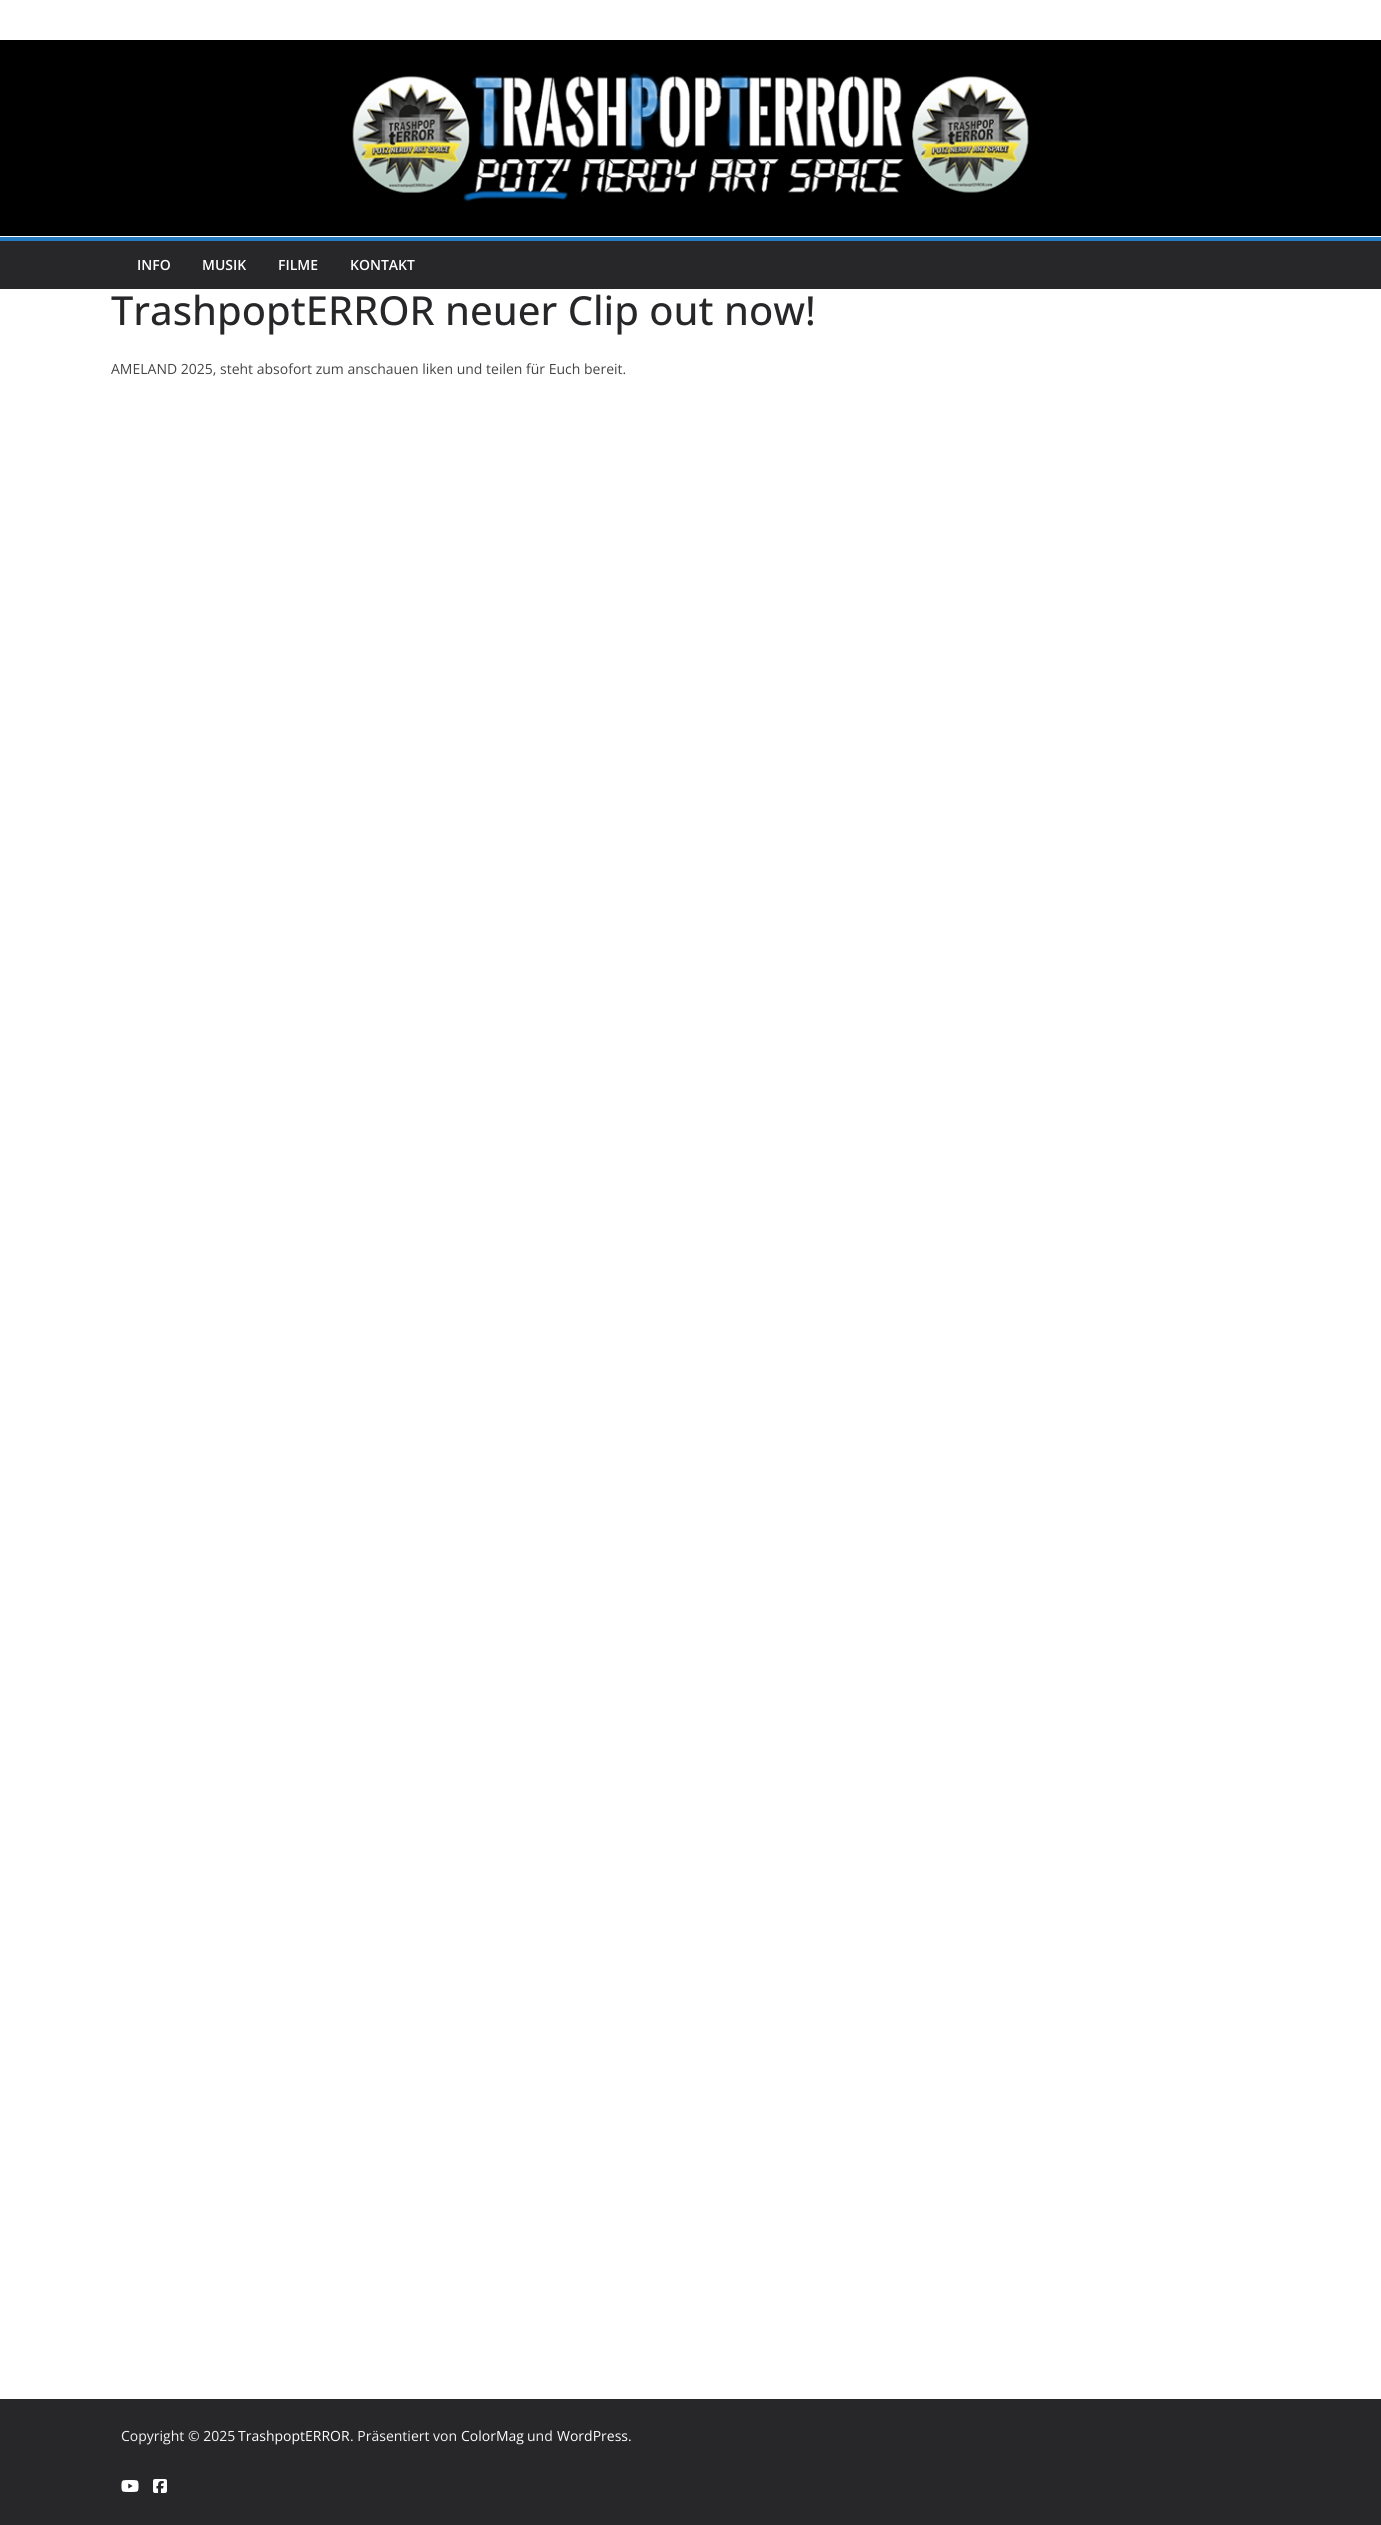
import math
import cairocffi as cairo

surface = cairo.ImageSurface(cairo.FORMAT_RGB24, 1381, 2525)
ctx = cairo.Context(surface)
options = cairo.FontOptions()
options.set_hint_metrics(cairo.HINT_METRICS_OFF)
options.set_hint_style(cairo.HINT_STYLE_NONE)
ctx.set_font_options(options)
ctx.set_miter_limit(4)


def rgb(r, g, b):
    ctx.set_source_rgb(r / 255, g / 255, b / 255)


def face(family, size, italic, bold):
    ctx.select_font_face(family, cairo.FONT_SLANT_ITALIC if italic else cairo.FONT_SLANT_NORMAL, cairo.FONT_WEIGHT_BOLD if bold else cairo.FONT_WEIGHT_NORMAL)
    ctx.set_font_size(size)


def label(x, y, s):
    ctx.move_to(x, y)
    ctx.show_text(s)


def rect(x, y, w, h):
    ctx.rectangle(x, y, w, h)
    ctx.fill()


def image(path, x, y, w, h):
    ctx.save()
    ctx.set_source_surface(cairo.ImageSurface.create_from_png(path), x, y)
    ctx.rectangle(x, y, w, h)
    ctx.fill()
    ctx.restore()


rgb(255, 255, 255)
ctx.paint()
image('image0.png', 0, 40, 1381, 196)
rgb(39, 39, 42)
rect(0, 241, 1381, 48)
rgb(37, 123, 193)
rect(0, 237, 1381, 4)
face('Open Sans SemiBold', 14, 0, 0)
rgb(255, 255, 255)
label(137, 270, 'INFO')
label(202, 270, 'MUSIK')
label(278, 270, 'FILME')
label(350, 270, 'KONTAKT')
face('Open Sans Medium', 40, 0, 0)
rgb(39, 39, 42)
label(111, 325, 'TrashpoptERROR neuer Clip out now!')
face('Open Sans', 14, 0, 0)
rgb(68, 68, 68)
label(111, 374, 'AMELAND 2025, steht absofort zum anschauen liken und teilen für Euch bereit.')
rgb(39, 39, 42)
rect(0, 2399, 1381, 126)
rgb(244, 244, 245)
label(121, 2441, 'Copyright © 2025')
rgb(255, 255, 255)
label(238, 2441, 'TrashpoptERROR')
rgb(244, 244, 245)
label(350, 2441, '. Präsentiert von')
rgb(255, 255, 255)
label(461, 2441, 'ColorMag')
rgb(244, 244, 245)
label(527, 2441, 'und')
rgb(255, 255, 255)
label(557, 2441, 'WordPress')
rgb(244, 244, 245)
label(628, 2441, '.')
image('image1.png', 121, 2480, 18, 12)
image('image2.png', 153, 2479, 14, 14)
surface.write_to_png('render.png')
